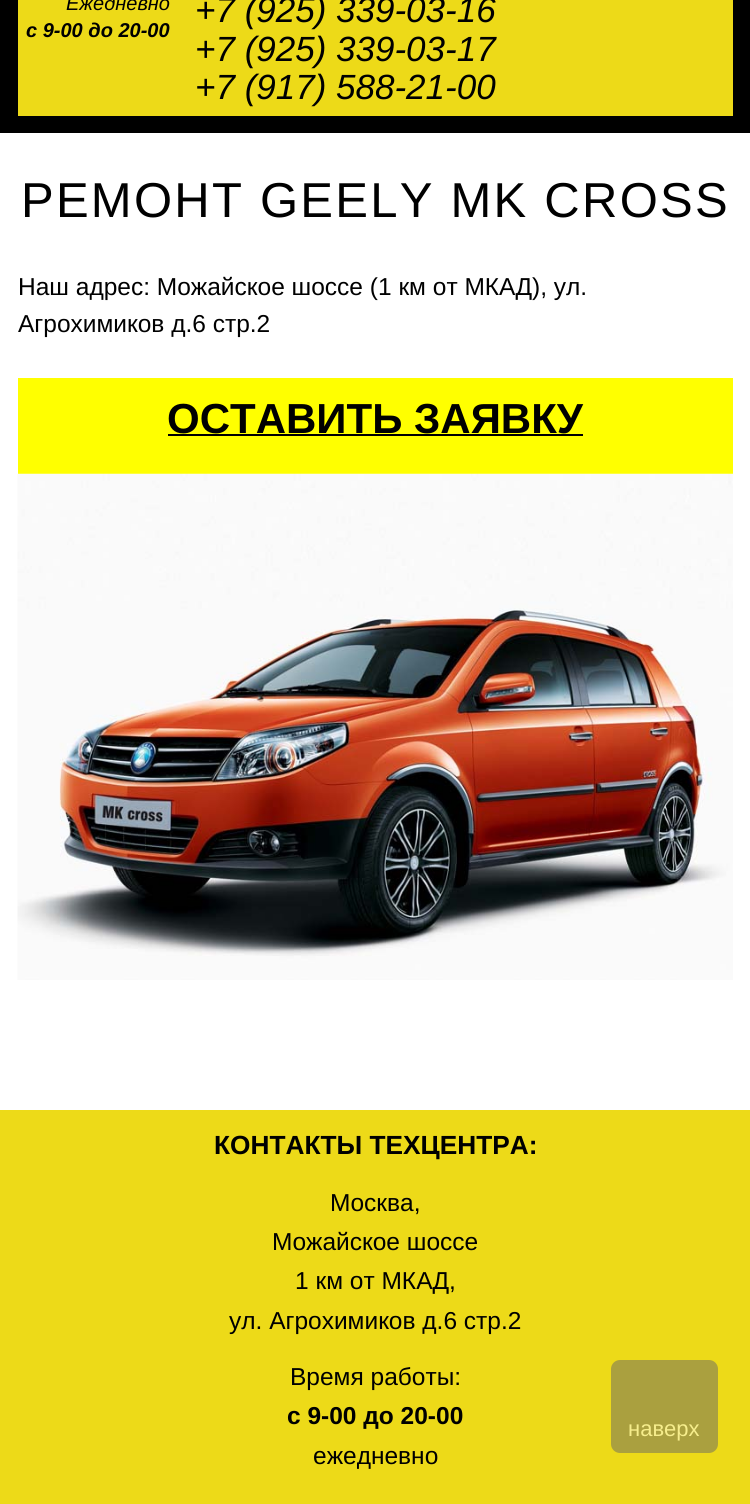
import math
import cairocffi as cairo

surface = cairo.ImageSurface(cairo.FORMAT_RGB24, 750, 1504)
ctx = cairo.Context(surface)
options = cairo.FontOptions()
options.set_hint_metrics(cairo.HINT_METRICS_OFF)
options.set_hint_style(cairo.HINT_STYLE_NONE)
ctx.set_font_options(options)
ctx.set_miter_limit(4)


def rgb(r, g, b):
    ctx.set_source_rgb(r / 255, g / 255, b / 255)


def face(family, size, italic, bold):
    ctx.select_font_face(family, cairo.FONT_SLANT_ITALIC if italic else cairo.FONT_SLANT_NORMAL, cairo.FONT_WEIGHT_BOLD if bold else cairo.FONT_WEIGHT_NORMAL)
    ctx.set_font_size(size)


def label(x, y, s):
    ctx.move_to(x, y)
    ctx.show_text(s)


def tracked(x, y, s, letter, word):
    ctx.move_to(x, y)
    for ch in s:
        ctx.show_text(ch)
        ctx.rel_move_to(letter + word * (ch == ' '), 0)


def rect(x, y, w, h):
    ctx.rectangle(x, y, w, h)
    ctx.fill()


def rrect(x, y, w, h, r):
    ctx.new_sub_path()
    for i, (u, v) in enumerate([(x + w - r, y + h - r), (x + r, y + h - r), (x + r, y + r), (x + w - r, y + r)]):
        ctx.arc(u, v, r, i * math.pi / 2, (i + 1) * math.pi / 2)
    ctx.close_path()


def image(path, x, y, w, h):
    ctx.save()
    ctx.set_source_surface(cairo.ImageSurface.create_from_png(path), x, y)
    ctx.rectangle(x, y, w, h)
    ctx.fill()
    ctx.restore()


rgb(255, 255, 255)
ctx.paint()
rgb(0, 0, 0)
rect(0, 0, 750, 133)
rgb(237, 218, 24)
rect(18, 0, 715, 116)
face('Liberation Sans', 20, 1, 0)
rgb(0, 0, 0)
label(66, 10, 'Ежедневно')
face('Liberation Sans', 20, 1, 1)
label(26, 37, 'с 9-00 до 20-00')
face('Liberation Sans', 35, 1, 0)
label(195, 22, '+7 (925) 339-03-16')
label(195, 61, '+7 (925) 339-03-17')
label(195, 99, '+7 (917) 588-21-00')
face('Liberation Sans', 49, 0, 0)
tracked(21, 217, 'РЕМОНТ GEELY MK CROSS', 2.25, 0)
face('Liberation Sans', 24.5, 0, 0)
label(18, 295, 'Наш адрес: Можайское шоссе (1 км от МКАД), ул.')
label(18, 332, 'Агрохимиков д.6 стр.2')
rgb(255, 255, 0)
rect(18, 378, 715, 96)
face('Liberation Sans', 42, 0, 1)
rgb(0, 0, 0)
label(167, 433, 'ОСТАВИТЬ ЗАЯВКУ')
rect(168, 434, 415, 2)
image('image0.png', 17, 473, 716, 507)
rgb(237, 218, 24)
rect(0, 1110, 750, 394)
face('Liberation Sans', 26.25, 0, 1)
rgb(0, 0, 0)
label(214, 1154, 'КОНТАКТЫ ТЕХЦЕНТРА:')
face('Liberation Sans', 24.5, 0, 0)
label(330, 1211, 'Москва,')
label(272, 1250, 'Можайское шоссе')
label(295, 1289, '1 км от МКАД,')
label(229, 1329, 'ул. Агрохимиков д.6 стр.2')
label(290, 1385, 'Время работы:')
face('Liberation Sans', 24.5, 0, 1)
label(287, 1424, 'с 9-00 до 20-00')
face('Liberation Sans', 24.5, 0, 0)
label(313, 1464, 'ежедневно')
rgb(170, 160, 63)
rrect(611, 1360, 107, 93, 9)
ctx.fill()
face('Liberation Sans', 22, 0, 0)
rgb(246, 237, 140)
label(628, 1436, 'наверх')
surface.write_to_png('render.png')
